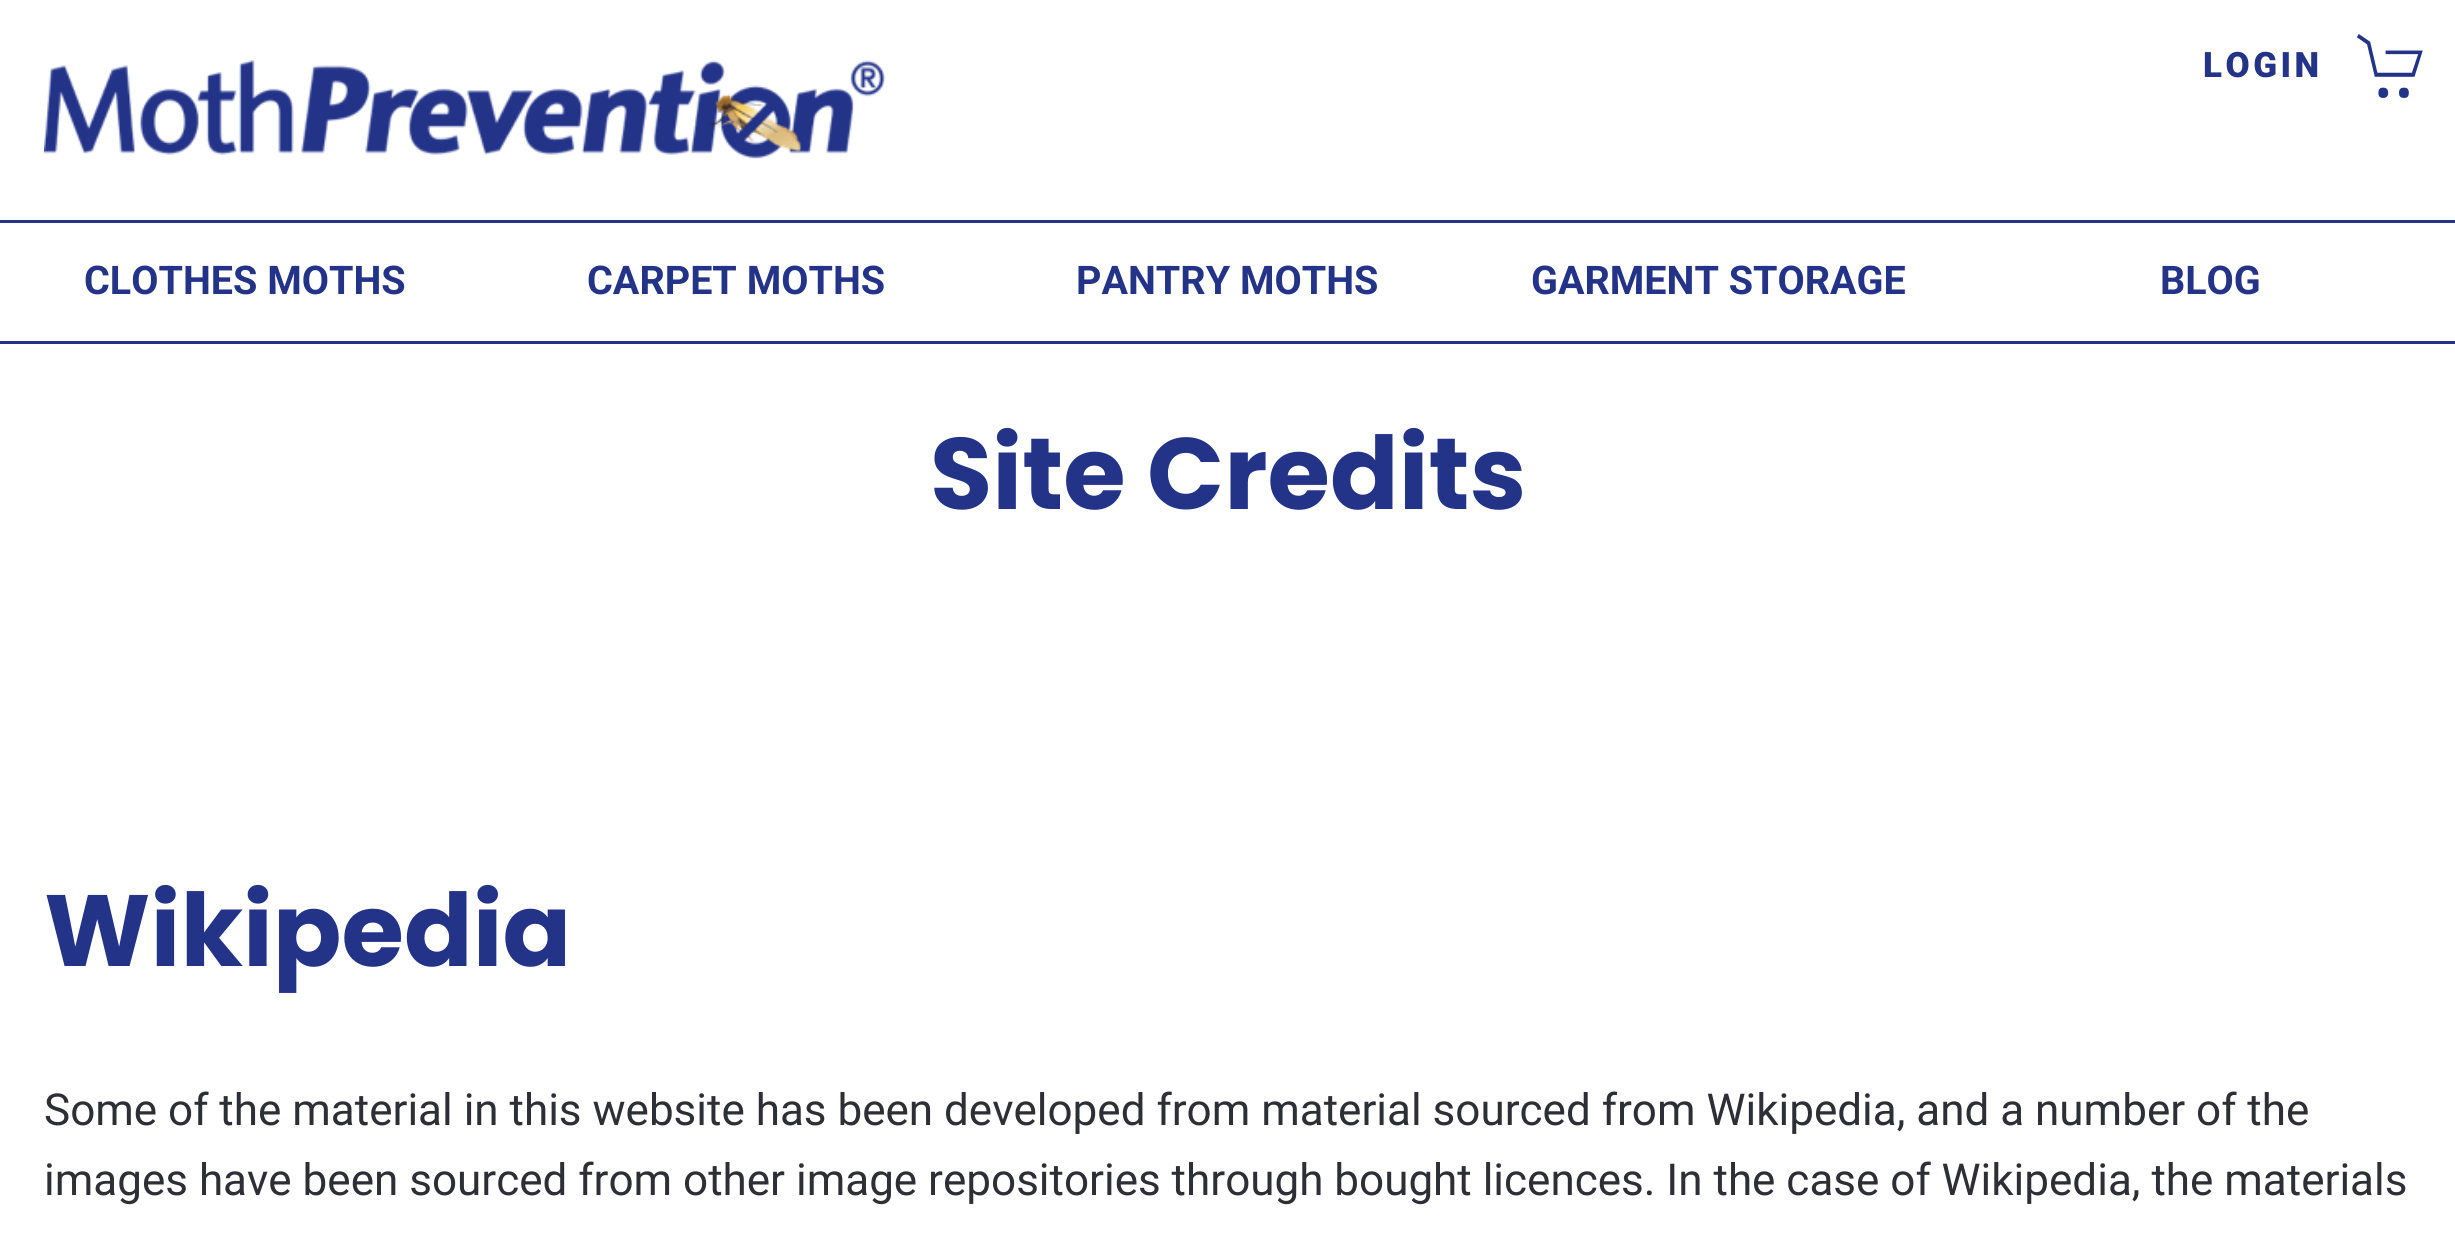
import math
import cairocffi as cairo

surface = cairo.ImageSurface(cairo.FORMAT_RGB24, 2455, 1249)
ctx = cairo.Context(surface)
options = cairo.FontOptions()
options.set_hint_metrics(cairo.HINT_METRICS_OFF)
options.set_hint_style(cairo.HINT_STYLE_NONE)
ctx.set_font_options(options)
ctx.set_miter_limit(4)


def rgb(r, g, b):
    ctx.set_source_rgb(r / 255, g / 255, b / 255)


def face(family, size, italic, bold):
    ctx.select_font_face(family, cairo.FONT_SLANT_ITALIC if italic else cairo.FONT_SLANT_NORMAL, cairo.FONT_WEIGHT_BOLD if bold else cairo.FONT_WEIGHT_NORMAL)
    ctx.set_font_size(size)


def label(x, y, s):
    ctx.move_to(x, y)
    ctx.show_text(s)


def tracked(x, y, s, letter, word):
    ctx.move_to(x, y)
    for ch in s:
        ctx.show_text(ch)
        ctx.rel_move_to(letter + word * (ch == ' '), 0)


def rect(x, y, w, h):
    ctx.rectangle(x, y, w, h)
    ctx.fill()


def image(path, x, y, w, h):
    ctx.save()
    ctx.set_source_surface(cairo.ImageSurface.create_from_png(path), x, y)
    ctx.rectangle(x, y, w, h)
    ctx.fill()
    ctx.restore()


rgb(255, 255, 255)
ctx.paint()
image('image0.png', 44, 60, 842, 99)
face('Roboto Black', 35, 0, 0)
rgb(34, 51, 136)
tracked(2203, 77, 'LOGIN', 3.5, 0)
image('image1.png', 2357, 34, 66, 64)
rect(0, 220, 2455, 3)
rect(0, 341, 2455, 3)
face('Roboto', 39.5, 0, 1)
label(84, 294, 'CLOTHES MOTHS')
label(587, 294, 'CARPET MOTHS')
label(1076, 294, 'PANTRY MOTHS')
label(1531, 294, 'GARMENT STORAGE')
label(2160, 294, 'BLOG')
face('Poppins', 101.25, 0, 1)
label(930, 509, 'Site Credits')
label(44, 966, 'Wikipedia')
face('Roboto', 44, 0, 0)
rgb(46, 47, 52)
label(44, 1125, 'Some of the material in this website has been developed from material sourced from Wikipedia, and a number of the')
label(44, 1195, 'images have been sourced from other image repositories through bought licences. In the case of Wikipedia, the materials')
surface.write_to_png('render.png')
